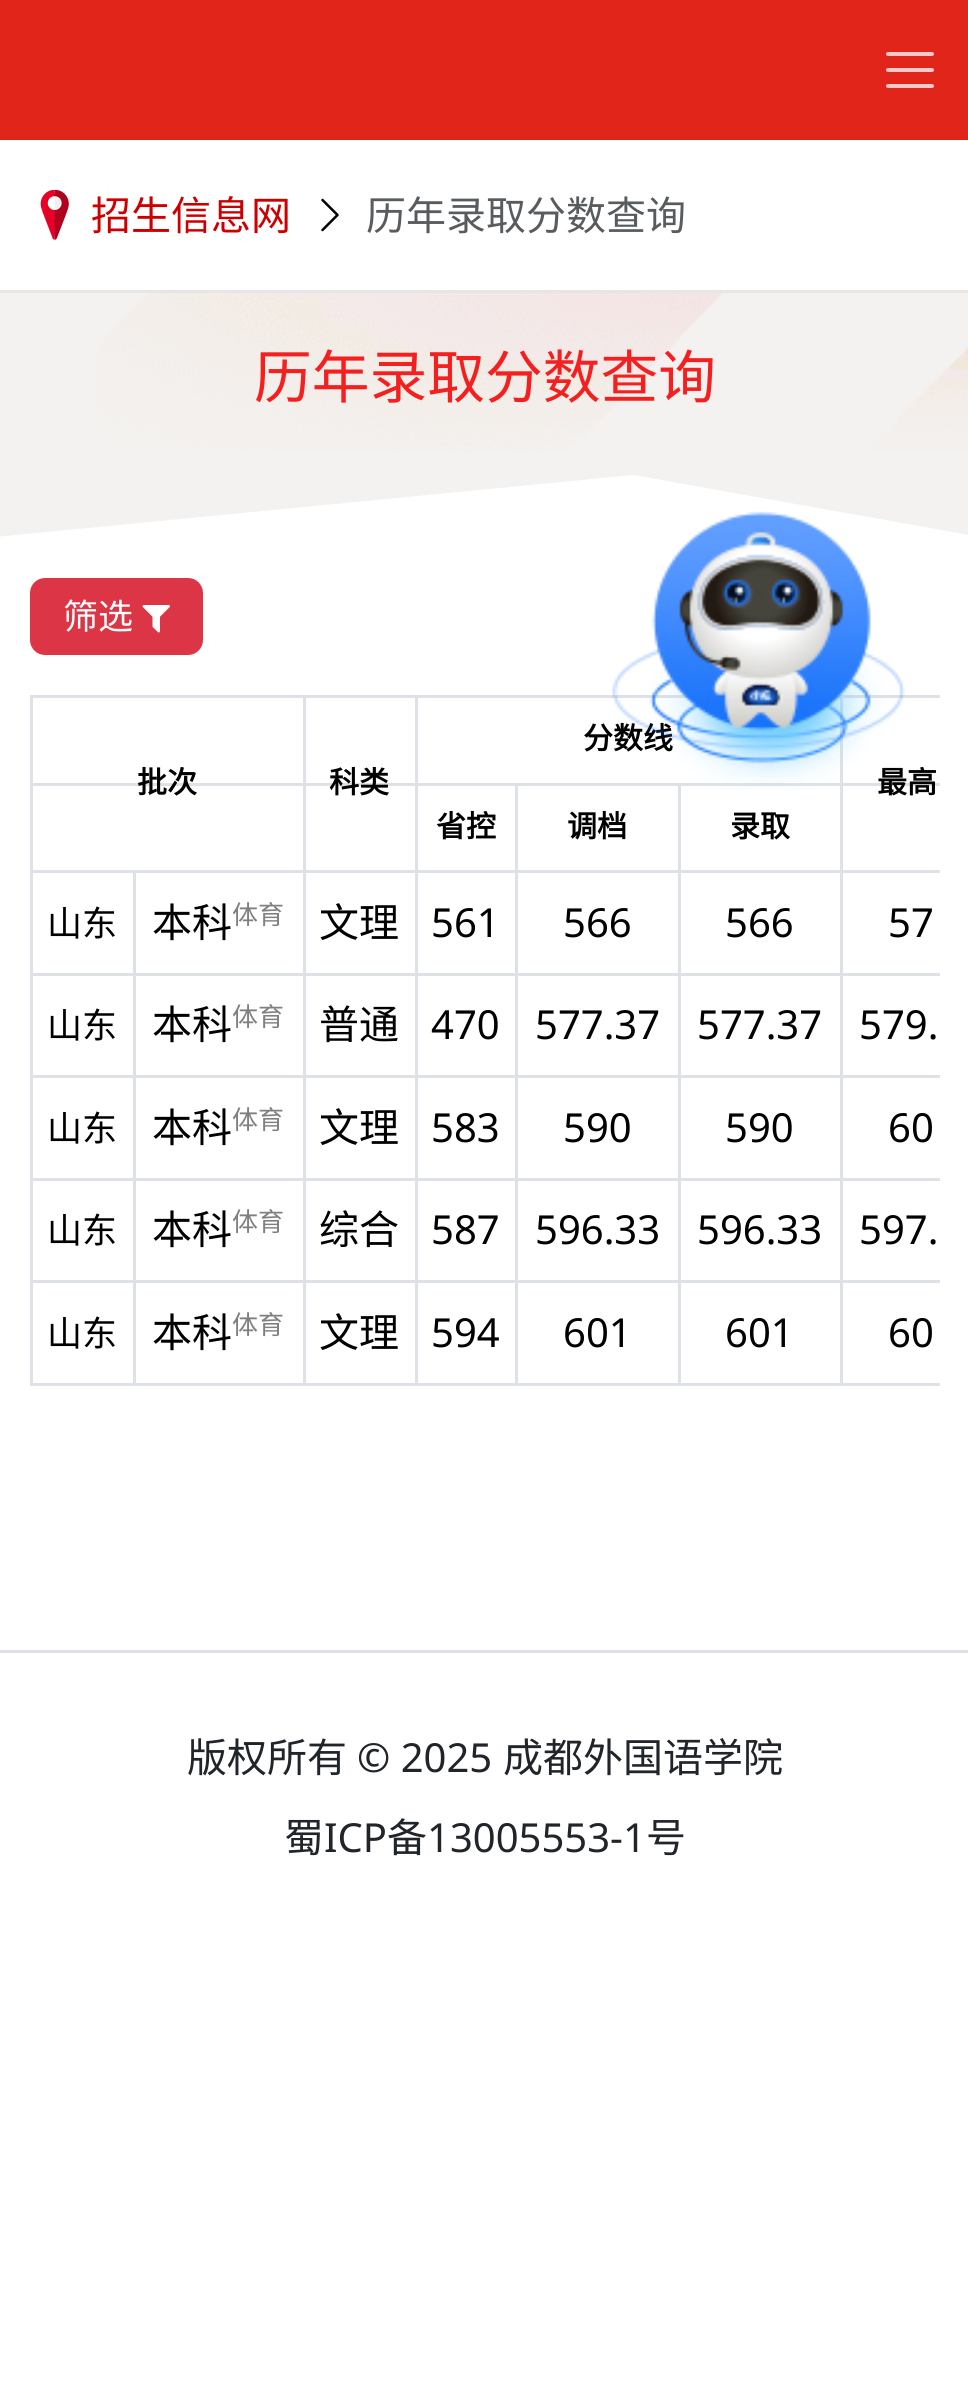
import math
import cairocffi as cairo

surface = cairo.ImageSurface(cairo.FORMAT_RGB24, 968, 2391)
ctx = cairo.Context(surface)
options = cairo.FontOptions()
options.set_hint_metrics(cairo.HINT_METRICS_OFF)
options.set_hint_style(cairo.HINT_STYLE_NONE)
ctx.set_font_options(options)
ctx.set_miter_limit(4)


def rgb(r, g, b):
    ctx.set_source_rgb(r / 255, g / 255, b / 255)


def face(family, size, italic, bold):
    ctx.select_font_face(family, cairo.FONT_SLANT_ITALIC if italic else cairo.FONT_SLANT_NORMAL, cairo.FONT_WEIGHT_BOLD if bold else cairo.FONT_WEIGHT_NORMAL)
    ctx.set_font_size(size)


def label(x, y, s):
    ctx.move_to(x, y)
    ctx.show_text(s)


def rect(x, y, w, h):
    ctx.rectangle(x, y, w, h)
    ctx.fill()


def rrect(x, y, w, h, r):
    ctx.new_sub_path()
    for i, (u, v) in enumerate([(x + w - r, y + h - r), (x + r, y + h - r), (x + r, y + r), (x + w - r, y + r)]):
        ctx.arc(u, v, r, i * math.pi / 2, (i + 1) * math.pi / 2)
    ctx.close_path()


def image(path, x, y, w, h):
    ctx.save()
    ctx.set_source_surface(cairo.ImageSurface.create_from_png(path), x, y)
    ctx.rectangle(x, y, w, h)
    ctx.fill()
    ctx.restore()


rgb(255, 255, 255)
ctx.paint()
rgb(225, 37, 27)
rect(0, 0, 968, 140)
ctx.new_path()
ctx.move_to(888, 54)
ctx.line_to(932, 54)
ctx.move_to(888, 70)
ctx.line_to(932, 70)
ctx.move_to(888, 86)
ctx.line_to(932, 86)
rgb(248, 201, 198)
ctx.set_line_width(4)
ctx.set_line_cap(cairo.LINE_CAP_ROUND)
ctx.stroke()
image('image0.png', 40, 190, 29, 50)
face('Noto Sans CJK SC', 40, 0, 0)
rgb(204, 0, 0)
label(91, 230, '招生信息网')
image('image1.png', 321, 198, 18, 34)
rgb(89, 92, 95)
label(366, 230, '历年录取分数查询')
rgb(244, 242, 240)
ctx.new_path()
ctx.move_to(-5, 293)
ctx.line_to(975, 293)
ctx.line_to(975, 536)
ctx.line_to(633, 475)
ctx.line_to(-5, 537)
ctx.close_path()
ctx.fill()
image('image2.png', 97, 293, 871, 160)
rgb(230, 230, 230)
rect(0, 290, 968, 3)
face('Noto Sans CJK SC', 57.75, 0, 0)
rgb(244, 32, 32)
label(254, 398, '历年录取分数查询')
rgb(220, 53, 69)
rrect(31.5, 579.5, 170, 74, 13.5)
ctx.fill_preserve()
ctx.set_line_width(3)
ctx.set_line_cap(cairo.LINE_CAP_BUTT)
ctx.stroke()
face('Noto Sans CJK SC', 35, 0, 0)
rgb(255, 255, 255)
label(63, 629, '筛选')
image('image3.png', 142, 605, 28, 28)
rgb(222, 226, 230)
rect(30, 695, 910, 3)
face('Noto Sans CJK SC', 30, 0, 1)
rgb(0, 0, 0)
label(583, 749, '分数线')
rgb(222, 226, 230)
rect(30, 783, 910, 3)
rgb(0, 0, 0)
label(137, 793, '批次')
label(329, 793, '科类')
label(877, 793, '最高')
label(436, 837, '省控')
label(567, 837, '调档')
label(730, 837, '录取')
rgb(222, 226, 230)
rect(30, 870, 910, 3)
face('Noto Sans CJK SC', 35, 0, 0)
rgb(0, 0, 0)
label(47, 936, '山东')
face('Noto Sans CJK SC', 40, 0, 0)
label(152, 937, '本科')
face('Noto Sans CJK SC', 26, 0, 0)
rgb(128, 128, 128)
label(232, 924, '体育')
face('Noto Sans CJK SC', 40, 0, 0)
rgb(0, 0, 0)
label(319, 937, '文理')
face('Noto Sans', 40, 0, 0)
label(431, 937, '561')
label(563, 937, '566')
label(725, 937, '566')
label(888, 937, '57')
rgb(222, 226, 230)
rect(30, 973, 910, 3)
face('Noto Sans CJK SC', 35, 0, 0)
rgb(0, 0, 0)
label(47, 1038, '山东')
face('Noto Sans CJK SC', 40, 0, 0)
label(152, 1039, '本科')
face('Noto Sans CJK SC', 26, 0, 0)
rgb(128, 128, 128)
label(232, 1026, '体育')
face('Noto Sans CJK SC', 40, 0, 0)
rgb(0, 0, 0)
label(319, 1039, '普通')
face('Noto Sans', 40, 0, 0)
label(431, 1039, '470')
label(535, 1039, '577.37')
label(697, 1039, '577.37')
label(859, 1039, '579.')
rgb(222, 226, 230)
rect(30, 1075, 910, 3)
face('Noto Sans CJK SC', 35, 0, 0)
rgb(0, 0, 0)
label(47, 1141, '山东')
face('Noto Sans CJK SC', 40, 0, 0)
label(152, 1142, '本科')
face('Noto Sans CJK SC', 26, 0, 0)
rgb(128, 128, 128)
label(232, 1129, '体育')
face('Noto Sans CJK SC', 40, 0, 0)
rgb(0, 0, 0)
label(319, 1142, '文理')
face('Noto Sans', 40, 0, 0)
label(431, 1142, '583')
label(563, 1142, '590')
label(725, 1142, '590')
label(888, 1142, '60')
rgb(222, 226, 230)
rect(30, 1178, 910, 3)
face('Noto Sans CJK SC', 35, 0, 0)
rgb(0, 0, 0)
label(47, 1243, '山东')
face('Noto Sans CJK SC', 40, 0, 0)
label(152, 1244, '本科')
face('Noto Sans CJK SC', 26, 0, 0)
rgb(128, 128, 128)
label(232, 1231, '体育')
face('Noto Sans CJK SC', 40, 0, 0)
rgb(0, 0, 0)
label(319, 1244, '综合')
face('Noto Sans', 40, 0, 0)
label(431, 1244, '587')
label(535, 1244, '596.33')
label(697, 1244, '596.33')
label(859, 1244, '597.')
rgb(222, 226, 230)
rect(30, 1280, 910, 3)
rect(30, 1383, 910, 3)
rect(30, 695, 3, 690)
face('Noto Sans CJK SC', 35, 0, 0)
rgb(0, 0, 0)
label(47, 1346, '山东')
rgb(222, 226, 230)
rect(133, 870, 3, 515)
face('Noto Sans CJK SC', 40, 0, 0)
rgb(0, 0, 0)
label(152, 1347, '本科')
face('Noto Sans CJK SC', 26, 0, 0)
rgb(128, 128, 128)
label(232, 1334, '体育')
rgb(222, 226, 230)
rect(303, 695, 3, 690)
face('Noto Sans CJK SC', 40, 0, 0)
rgb(0, 0, 0)
label(319, 1347, '文理')
rgb(222, 226, 230)
rect(415, 695, 3, 690)
face('Noto Sans', 40, 0, 0)
rgb(0, 0, 0)
label(431, 1347, '594')
rgb(222, 226, 230)
rect(515, 783, 3, 602)
rgb(0, 0, 0)
label(563, 1347, '601')
rgb(222, 226, 230)
rect(678, 783, 3, 602)
rgb(0, 0, 0)
label(725, 1347, '601')
rgb(222, 226, 230)
rect(840, 695, 3, 690)
rgb(0, 0, 0)
label(888, 1347, '60')
image('image4.png', 612, 511, 293, 277)
rgb(222, 226, 230)
rect(0, 1650, 968, 3)
face('Noto Sans CJK SC', 40, 0, 0)
rgb(33, 37, 41)
label(187, 1772, '版权所有')
face('Noto Sans', 40, 0, 0)
label(357, 1772, '© 2025')
face('Noto Sans CJK SC', 40, 0, 0)
label(503, 1772, '成都外国语学院')
label(284, 1852, '蜀')
face('Noto Sans', 40, 0, 0)
label(324, 1852, 'ICP')
face('Noto Sans CJK SC', 40, 0, 0)
label(387, 1852, '备')
face('Noto Sans', 40, 0, 0)
label(427, 1852, '13005553-1')
face('Noto Sans CJK SC', 40, 0, 0)
label(646, 1852, '号')
surface.write_to_png('render.png')
